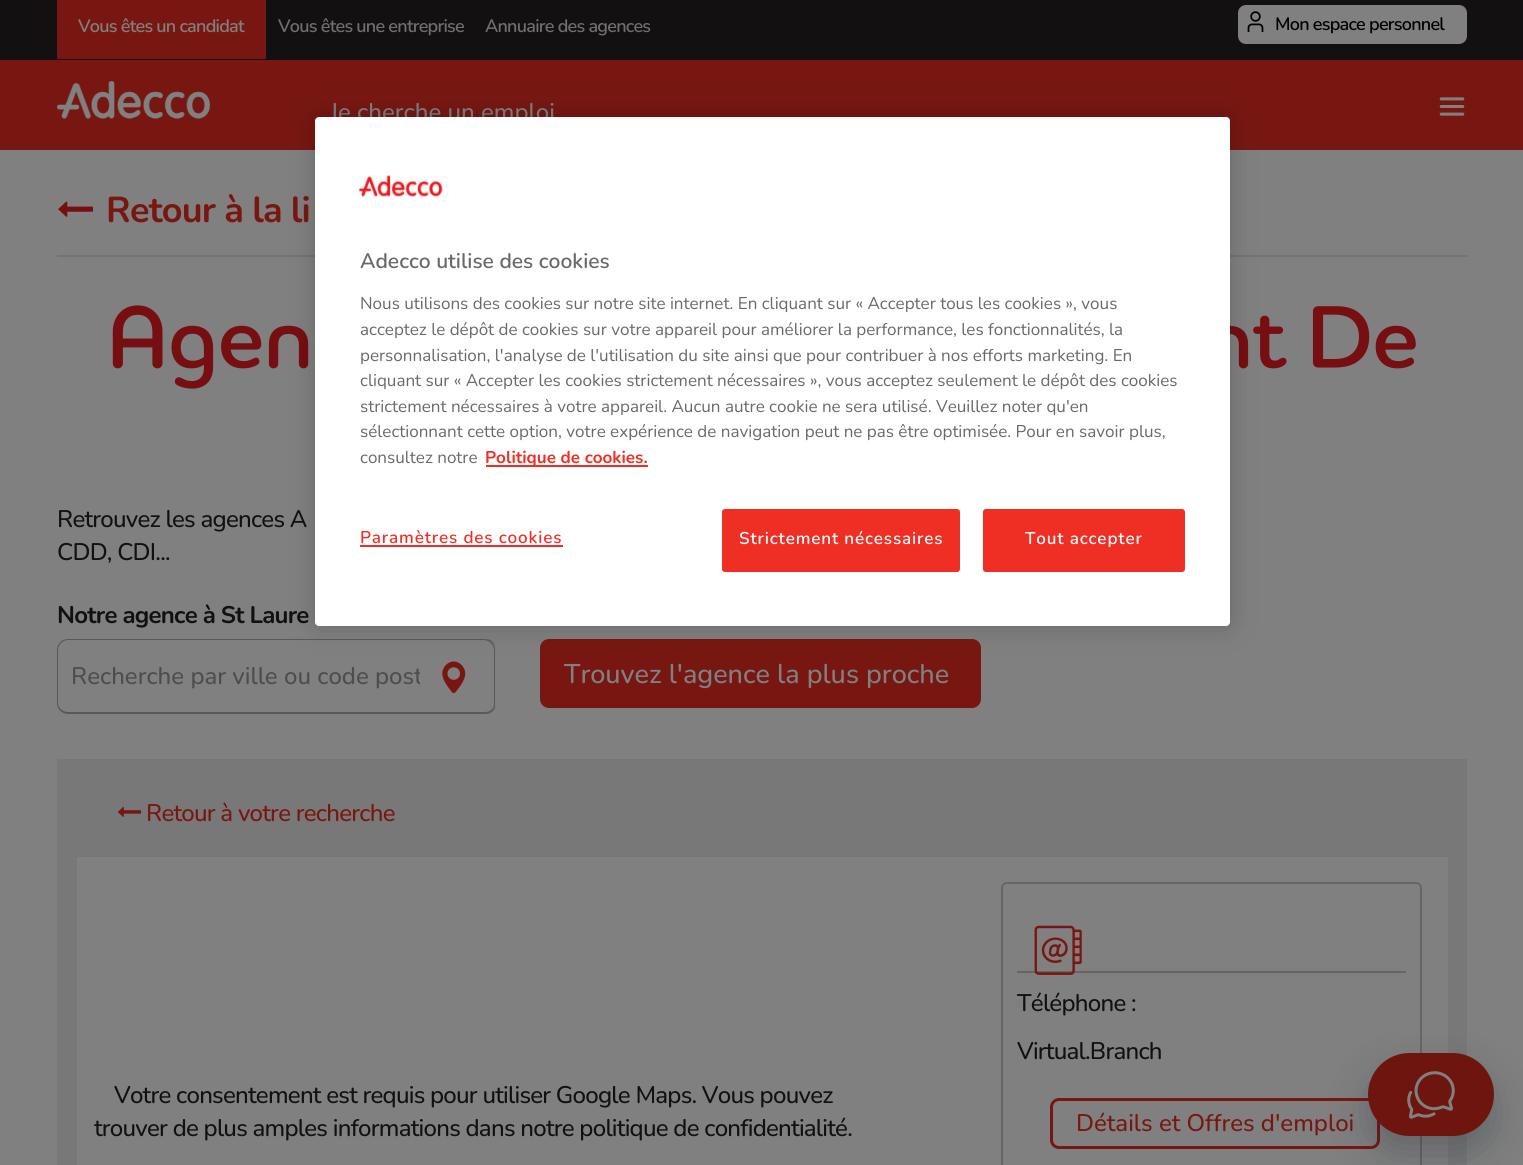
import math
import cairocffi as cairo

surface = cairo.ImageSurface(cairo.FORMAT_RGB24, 1523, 1165)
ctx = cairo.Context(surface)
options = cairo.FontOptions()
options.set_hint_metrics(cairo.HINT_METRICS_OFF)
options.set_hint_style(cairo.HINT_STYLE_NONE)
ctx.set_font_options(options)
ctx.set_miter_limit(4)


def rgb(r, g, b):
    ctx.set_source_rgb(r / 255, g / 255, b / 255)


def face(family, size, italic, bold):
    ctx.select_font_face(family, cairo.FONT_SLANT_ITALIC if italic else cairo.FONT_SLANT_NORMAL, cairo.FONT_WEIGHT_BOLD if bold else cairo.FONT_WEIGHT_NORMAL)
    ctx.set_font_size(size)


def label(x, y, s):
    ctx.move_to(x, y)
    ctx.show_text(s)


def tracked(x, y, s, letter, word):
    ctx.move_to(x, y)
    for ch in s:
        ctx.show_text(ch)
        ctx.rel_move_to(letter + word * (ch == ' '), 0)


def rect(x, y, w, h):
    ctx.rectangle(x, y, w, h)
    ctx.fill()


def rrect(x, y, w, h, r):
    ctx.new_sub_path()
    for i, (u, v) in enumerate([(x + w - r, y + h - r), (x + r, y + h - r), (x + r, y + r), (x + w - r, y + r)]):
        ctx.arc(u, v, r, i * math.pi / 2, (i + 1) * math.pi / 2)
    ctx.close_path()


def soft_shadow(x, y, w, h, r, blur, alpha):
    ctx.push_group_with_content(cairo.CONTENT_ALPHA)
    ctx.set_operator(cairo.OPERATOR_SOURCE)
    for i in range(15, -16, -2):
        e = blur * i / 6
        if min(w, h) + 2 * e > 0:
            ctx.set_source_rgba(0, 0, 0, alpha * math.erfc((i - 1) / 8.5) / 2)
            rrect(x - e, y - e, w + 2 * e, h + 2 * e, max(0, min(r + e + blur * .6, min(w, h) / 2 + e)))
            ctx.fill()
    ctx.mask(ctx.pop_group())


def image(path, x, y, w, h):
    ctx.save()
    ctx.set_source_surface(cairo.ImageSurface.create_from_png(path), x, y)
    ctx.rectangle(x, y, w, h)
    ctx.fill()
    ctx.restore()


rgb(128, 128, 128)
ctx.paint()
rgb(120, 23, 18)
rect(0, 60, 1523, 90)
rgb(18, 16, 16)
rect(0, 0, 1523, 60)
rgb(120, 23, 18)
rect(57, 0, 209, 59)
face('Nunito SemiBold', 18, 0, 0)
rgb(128, 128, 128)
tracked(78, 32, 'Vous êtes un candidat', -0.75, 0)
rgb(111, 111, 111)
tracked(278, 32, 'Vous êtes une entreprise', -0.75, 0)
tracked(485, 32, 'Annuaire des agences', -0.75, 0)
rgb(128, 128, 128)
rrect(1238, 5, 229, 39, 8)
ctx.fill()
image('image0.png', 1247, 11, 17, 21)
rgb(0, 0, 0)
tracked(1275, 30, 'Mon espace personnel', -0.75, 0)
image('image1.png', 57, 81, 153, 38)
face('Nunito Medium', 24, 0, 0)
rgb(128, 128, 128)
label(330, 120, 'Je cherche un emploi')
image('image2.png', 1439, 97, 26, 19)
rgb(116, 115, 115)
rect(57, 255, 1410, 2)
image('image3.png', 58, 201, 35, 16)
face('Nunito', 36, 0, 1)
rgb(120, 23, 18)
tracked(106, 222, 'Retour à la li', -0.75, 0)
image('image4.png', 112, 305, 1304, 84)
face('Nunito Medium', 24, 0, 0)
rgb(18, 16, 16)
tracked(57, 527, 'Retrouvez les agences A', -0.75, 0)
tracked(57, 560, 'CDD, CDI...', -0.75, 0)
face('Nunito', 24, 0, 1)
tracked(57, 623, 'Notre agence à St Laure', -0.75, 0)
rgb(89, 89, 89)
ctx.set_fill_rule(cairo.FILL_RULE_EVEN_ODD)
ctx.new_path()
ctx.move_to(68, 639)
ctx.line_to(486, 639)
ctx.curve_to(492, 639, 496, 644, 496, 650)
ctx.line_to(496, 704)
ctx.curve_to(496, 709, 492, 714, 486, 714)
ctx.line_to(68, 714)
ctx.curve_to(62, 714, 57, 709, 57, 704)
ctx.line_to(57, 650)
ctx.curve_to(57, 644, 62, 639, 68, 639)
ctx.close_path()
ctx.move_to(68, 640)
ctx.line_to(486, 640)
ctx.curve_to(492, 640, 496, 645, 496, 650)
ctx.line_to(496, 704)
ctx.curve_to(496, 708, 492, 712, 486, 712)
ctx.line_to(68, 712)
ctx.curve_to(63, 712, 58, 708, 58, 704)
ctx.line_to(58, 650)
ctx.curve_to(58, 645, 63, 640, 68, 640)
ctx.close_path()
ctx.fill()
face('Nunito Medium', 24, 0, 0)
rgb(77, 77, 77)
label(71, 684, 'Recherche par ville ou code post')
rgb(128, 128, 128)
ctx.new_path()
ctx.move_to(420, 639)
ctx.line_to(484, 639)
ctx.curve_to(490, 639, 495, 644, 495, 650)
ctx.line_to(495, 705)
ctx.curve_to(495, 710, 491, 714, 486, 714)
ctx.line_to(420, 714)
ctx.close_path()
ctx.fill()
rgb(89, 89, 89)
ctx.new_path()
ctx.move_to(420, 639)
ctx.line_to(484, 639)
ctx.curve_to(490, 639, 495, 644, 495, 650)
ctx.line_to(495, 704)
ctx.curve_to(495, 710, 491, 714, 485, 714)
ctx.line_to(420, 714)
ctx.close_path()
ctx.move_to(420, 640)
ctx.line_to(484, 640)
ctx.curve_to(489, 640, 494, 645, 494, 650)
ctx.line_to(494, 704)
ctx.curve_to(494, 709, 490, 712, 485, 712)
ctx.line_to(420, 712)
ctx.close_path()
ctx.fill()
image('image5.png', 442, 661, 24, 32)
rgb(120, 23, 18)
rrect(540, 639, 441, 69, 9)
ctx.fill()
face('Nunito Medium', 27, 0, 0)
rgb(128, 128, 128)
label(564, 683, 'Trouvez l\'agence la plus proche')
rgb(120, 120, 120)
rect(57, 759, 1410, 406)
image('image6.png', 117, 806, 24, 11)
face('Nunito Medium', 24, 0, 0)
rgb(120, 23, 18)
tracked(146, 821, 'Retour à votre recherche', -0.75, 0)
rgb(128, 128, 128)
rect(77, 857, 1371, 308)
rgb(18, 16, 16)
tracked(114, 1103, 'Votre consentement est requis pour utiliser Google Maps. Vous pouvez', -0.75, 0)
tracked(94, 1136, 'trouver de plus amples informations dans notre politique de confidentialité.', -0.75, 0)
rrect(1002, 883, 419, 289, 5)
rgb(102, 102, 102)
ctx.stroke()
rect(1017, 971, 389, 2)
image('image7.png', 1034, 925, 48, 50)
rgb(18, 16, 16)
tracked(1017, 1011, 'Téléphone :', -0.75, 0)
tracked(1017, 1059, 'Virtual.Branch', -0.75, 0)
rrect(1051.5, 1099.5, 327, 48, 7.5)
rgb(120, 23, 18)
ctx.set_line_width(3)
ctx.stroke()
label(1076, 1131, 'Détails et Offres d\'emploi')
rgb(0, 0, 0)
soft_shadow(315, 117, 915, 509, 4, 13.5, 0.2)
rgb(255, 255, 255)
rrect(315, 117, 915, 509, 4)
ctx.fill()
image('image8.png', 358, 175, 85, 22)
face('Nunito SemiBold', 21, 0, 0)
rgb(105, 105, 105)
label(360, 268, 'Adecco utilise des cookies')
face('Nunito', 17.05, 0, 0)
label(360, 309, 'Nous utilisons des cookies sur notre site internet. En cliquant sur « Accepter tous les cookies », vous')
label(360, 335, 'acceptez le dépôt de cookies sur votre appareil pour améliorer la performance, les fonctionnalités, la')
label(360, 361, 'personnalisation, l\'analyse de l\'utilisation du site ainsi que pour contribuer à nos efforts marketing. En')
label(360, 386, 'cliquant sur « Accepter les cookies strictement nécessaires », vous acceptez seulement le dépôt des cookies')
label(360, 412, 'strictement nécessaires à votre appareil. Aucun autre cookie ne sera utilisé. Veuillez noter qu\'en')
label(360, 437, 'sélectionnant cette option, votre expérience de navigation peut ne pas être optimisée. Pour en savoir plus,')
label(360, 463, 'consultez notre')
rgb(239, 46, 36)
rect(486, 465, 162, 2)
face('Nunito', 17.05, 0, 1)
label(485, 463, 'Politique de cookies.')
face('Nunito SemiBold', 17.05, 0, 0)
tracked(360, 543, 'Paramètres des cookies', 0.85, 0)
rect(360, 545, 203, 2)
rrect(723, 510, 236, 61, 2)
ctx.fill_preserve()
ctx.set_line_width(2)
ctx.stroke()
rgb(255, 255, 255)
tracked(739, 544, 'Strictement nécessaires', 0.85, 0)
rgb(239, 46, 36)
rrect(984, 510, 200, 61, 2)
ctx.fill_preserve()
ctx.stroke()
rgb(255, 255, 255)
tracked(1025, 544, 'Tout accepter', 0.85, 0)
rgb(14, 24, 38)
soft_shadow(1368, 1071, 126, 83, 41.5, 19, 0.25)
rgb(109, 21, 14)
rrect(1368, 1053, 126, 83, 41.5)
ctx.fill()
image('image9.png', 1407, 1071, 48, 48)
surface.write_to_png('render.png')
